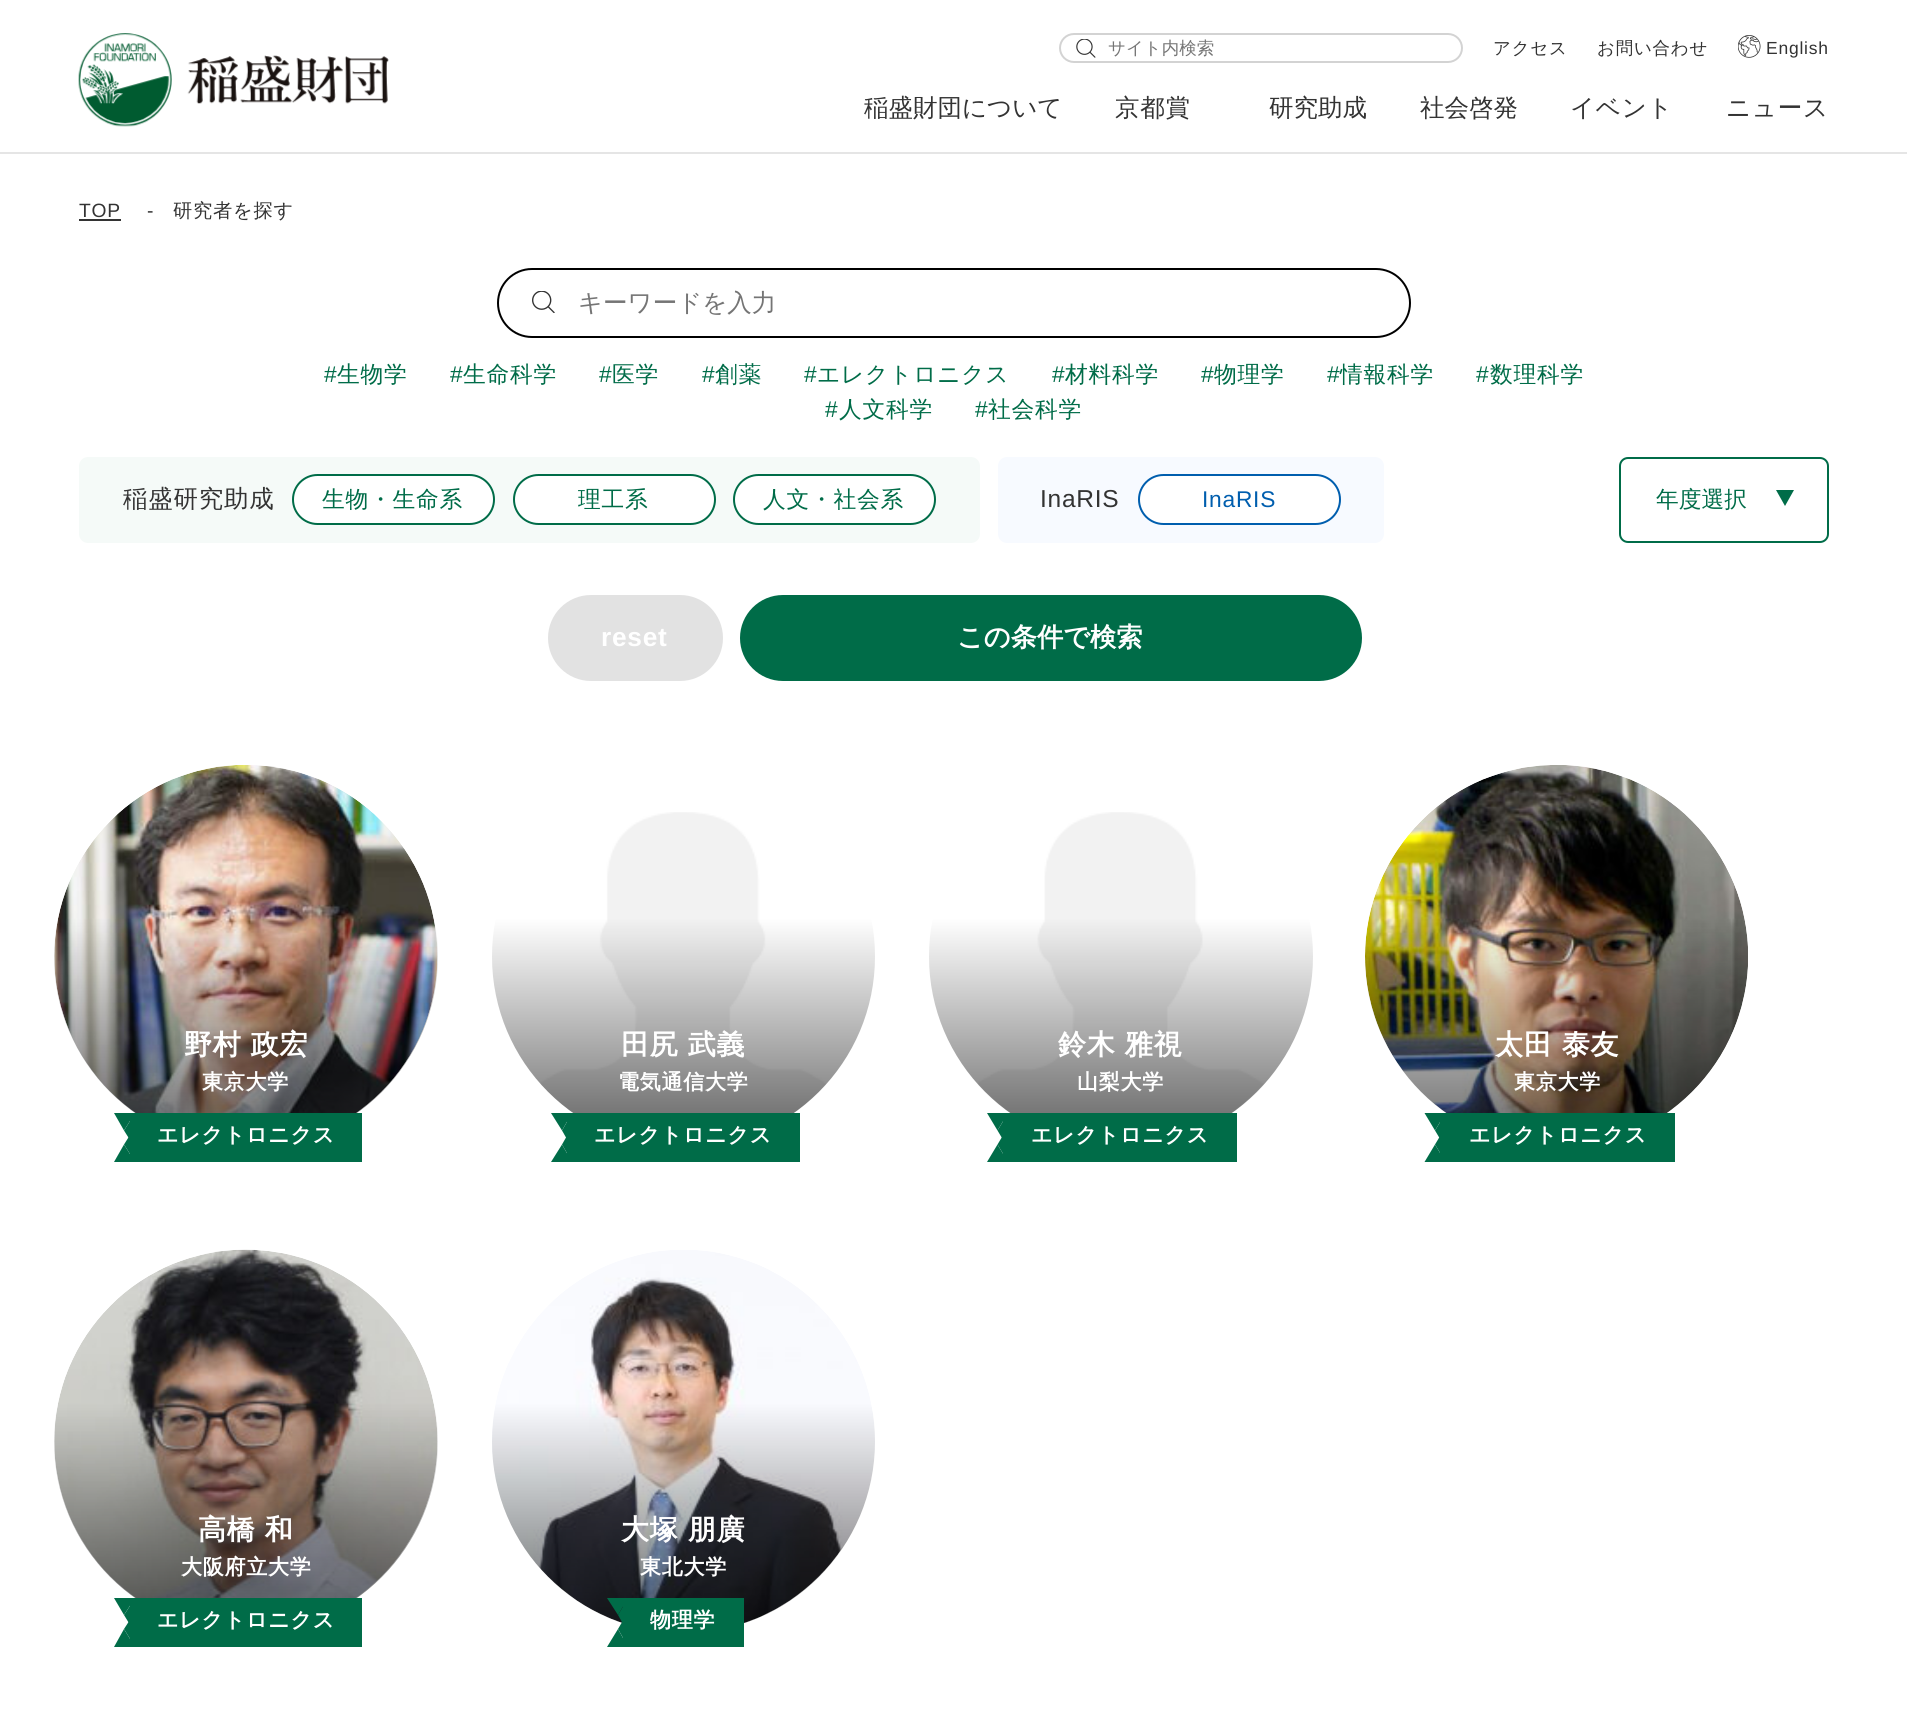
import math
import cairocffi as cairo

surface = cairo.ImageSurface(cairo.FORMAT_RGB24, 1907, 1729)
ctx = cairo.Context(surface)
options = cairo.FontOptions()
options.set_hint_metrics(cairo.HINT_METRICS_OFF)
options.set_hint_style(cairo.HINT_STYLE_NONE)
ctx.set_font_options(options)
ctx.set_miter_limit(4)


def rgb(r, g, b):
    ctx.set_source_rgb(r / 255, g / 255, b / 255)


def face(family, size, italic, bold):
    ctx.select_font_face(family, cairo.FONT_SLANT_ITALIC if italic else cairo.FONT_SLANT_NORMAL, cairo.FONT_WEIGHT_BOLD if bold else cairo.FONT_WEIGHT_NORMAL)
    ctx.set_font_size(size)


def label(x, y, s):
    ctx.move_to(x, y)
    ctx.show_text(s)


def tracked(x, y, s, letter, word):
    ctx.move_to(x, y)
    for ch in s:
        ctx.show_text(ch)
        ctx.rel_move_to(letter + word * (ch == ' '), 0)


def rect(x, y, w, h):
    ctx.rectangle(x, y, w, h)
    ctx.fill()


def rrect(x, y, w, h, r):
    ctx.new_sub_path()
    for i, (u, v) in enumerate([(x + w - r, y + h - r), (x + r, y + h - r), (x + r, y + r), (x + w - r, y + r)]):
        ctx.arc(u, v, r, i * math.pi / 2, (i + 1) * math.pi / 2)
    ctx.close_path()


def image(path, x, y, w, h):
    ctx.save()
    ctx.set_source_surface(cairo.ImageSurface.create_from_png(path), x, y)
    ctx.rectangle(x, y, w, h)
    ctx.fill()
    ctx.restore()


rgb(255, 255, 255)
ctx.paint()
rgb(229, 229, 229)
rect(0, 152, 1907, 2)
image('image0.png', 78, 33, 311, 94)
image('image1.png', 1076, 39, 20, 19)
rrect(1060, 34, 402, 28, 14)
rgb(211, 211, 211)
ctx.stroke()
face('WenQuanYi Zen Hei Medium', 17.5, 0, 0)
rgb(117, 117, 117)
label(1108, 54, 'サイト内検索')
rgb(51, 51, 51)
tracked(1493, 54, 'アクセス', 0.75, 0)
tracked(1597, 54, 'お問い合わせ', 0.75, 0)
image('image2.png', 1738, 35, 23, 23)
face('Liberation Sans', 17.5, 0, 0)
tracked(1766, 54, 'English', 0.75, 0)
face('WenQuanYi Zen Hei Medium', 24.5, 0, 0)
label(864, 116, '稲盛財団について')
tracked(1115, 116, '京都賞', 0.75, 0)
label(1269, 116, '研究助成')
label(1420, 116, '社会啓発')
tracked(1570, 116, 'イベント', 0.75, 0)
tracked(1726, 116, 'ニュース', 0.75, 0)
face('Liberation Sans', 19.25, 0, 0)
tracked(79, 217, 'TOP', 0.75, 0)
rect(79, 219, 42, 2)
tracked(147, 217, '-', 0.75, 0)
face('WenQuanYi Zen Hei Medium', 19.25, 0, 0)
tracked(173, 217, '研究者を探す', 0.75, 0)
image('image3.png', 532, 291, 23, 22)
rrect(498, 269, 912, 68, 34)
rgb(0, 0, 0)
ctx.stroke()
face('WenQuanYi Zen Hei Medium', 24.5, 0, 0)
rgb(117, 117, 117)
label(578, 311, 'キーワードを入力')
face('Liberation Sans', 22.75, 0, 0)
rgb(0, 108, 72)
tracked(324, 382, '#', 0.75, 0)
face('WenQuanYi Zen Hei Medium', 22.75, 0, 0)
tracked(337, 382, '生物学', 0.75, 0)
face('Liberation Sans', 22.75, 0, 0)
tracked(450, 382, '#', 0.75, 0)
face('WenQuanYi Zen Hei Medium', 22.75, 0, 0)
tracked(463, 382, '生命科学', 0.75, 0)
face('Liberation Sans', 22.75, 0, 0)
tracked(599, 382, '#', 0.75, 0)
face('WenQuanYi Zen Hei Medium', 22.75, 0, 0)
tracked(612, 382, '医学', 0.75, 0)
face('Liberation Sans', 22.75, 0, 0)
tracked(702, 382, '#', 0.75, 0)
face('WenQuanYi Zen Hei Medium', 22.75, 0, 0)
tracked(715, 382, '創薬', 0.75, 0)
face('Liberation Sans', 22.75, 0, 0)
tracked(804, 382, '#', 0.75, 0)
face('WenQuanYi Zen Hei Medium', 22.75, 0, 0)
tracked(817, 382, 'エレクトロニクス', 0.75, 0)
face('Liberation Sans', 22.75, 0, 0)
tracked(1052, 382, '#', 0.75, 0)
face('WenQuanYi Zen Hei Medium', 22.75, 0, 0)
tracked(1065, 382, '材料科学', 0.75, 0)
face('Liberation Sans', 22.75, 0, 0)
tracked(1201, 382, '#', 0.75, 0)
face('WenQuanYi Zen Hei Medium', 22.75, 0, 0)
tracked(1214, 382, '物理学', 0.75, 0)
face('Liberation Sans', 22.75, 0, 0)
tracked(1327, 382, '#', 0.75, 0)
face('WenQuanYi Zen Hei Medium', 22.75, 0, 0)
tracked(1340, 382, '情報科学', 0.75, 0)
face('Liberation Sans', 22.75, 0, 0)
tracked(1476, 382, '#', 0.75, 0)
face('WenQuanYi Zen Hei Medium', 22.75, 0, 0)
tracked(1490, 382, '数理科学', 0.75, 0)
face('Liberation Sans', 22.75, 0, 0)
tracked(825, 417, '#', 0.75, 0)
face('WenQuanYi Zen Hei Medium', 22.75, 0, 0)
tracked(839, 417, '人文科学', 0.75, 0)
face('Liberation Sans', 22.75, 0, 0)
tracked(975, 417, '#', 0.75, 0)
face('WenQuanYi Zen Hei Medium', 22.75, 0, 0)
tracked(988, 417, '社会科学', 0.75, 0)
rgb(245, 250, 248)
rrect(79, 457, 901, 86, 9)
ctx.fill()
face('WenQuanYi Zen Hei Medium', 24.5, 0, 0)
rgb(51, 51, 51)
tracked(123, 507, '稲盛研究助成', 0.75, 0)
rgb(255, 255, 255)
rrect(293, 475, 201, 49, 24.5)
ctx.fill_preserve()
rgb(0, 108, 72)
ctx.stroke()
face('WenQuanYi Zen Hei Medium', 22.75, 0, 0)
tracked(322, 507, '生物・生命系', 0.75, 0)
rgb(255, 255, 255)
rrect(514, 475, 201, 49, 24.5)
ctx.fill_preserve()
rgb(0, 108, 72)
ctx.stroke()
tracked(578, 507, '理工系', 0.75, 0)
rgb(255, 255, 255)
rrect(734, 475, 201, 49, 24.5)
ctx.fill_preserve()
rgb(0, 108, 72)
ctx.stroke()
tracked(763, 507, '人文・社会系', 0.75, 0)
rgb(247, 250, 255)
rrect(998, 457, 386, 86, 9)
ctx.fill()
face('Liberation Sans', 24.5, 0, 0)
rgb(51, 51, 51)
tracked(1040, 507, 'InaRIS', 0.75, 0)
rgb(255, 255, 255)
rrect(1139, 475, 201, 49, 24.5)
ctx.fill_preserve()
rgb(0, 94, 174)
ctx.stroke()
face('Liberation Sans', 22.75, 0, 0)
tracked(1202, 507, 'InaRIS', 0.75, 0)
rrect(1620, 458, 208, 84, 8)
rgb(0, 108, 72)
ctx.stroke()
face('WenQuanYi Zen Hei Medium', 22.75, 0, 0)
label(1656, 507, '年度選択')
ctx.new_path()
ctx.move_to(1776, 490)
ctx.line_to(1794, 490)
ctx.line_to(1785, 506)
ctx.close_path()
ctx.fill()
rgb(226, 226, 226)
rrect(548, 595, 175, 86, 43)
ctx.fill()
face('Liberation Sans', 26.25, 0, 1)
rgb(255, 255, 255)
tracked(601, 646, 'reset', 0.75, 0)
rgb(0, 108, 72)
rrect(740, 595, 622, 86, 43)
ctx.fill()
face('WenQuanYi Zen Hei', 26.25, 0, 1)
rgb(255, 255, 255)
label(957, 646, 'この条件で検索')
image('image4.png', 54, 765, 384, 348)
gradient = cairo.LinearGradient(246, 765, 246, 1148)
gradient.add_color_stop_rgba(0, 0, 0, 0, 0)
gradient.add_color_stop_rgba(0.4, 0, 0, 0, 0)
gradient.add_color_stop_rgba(1, 0, 0, 0, 0.6)
ctx.set_source(gradient)
rrect(54, 765, 384, 383, 191.5)
ctx.fill()
face('WenQuanYi Zen Hei', 28, 0, 1)
rgb(255, 255, 255)
tracked(184, 1054, '野村 政宏', 0.75, 0)
face('WenQuanYi Zen Hei', 21, 0, 1)
tracked(202, 1089, '東京大学', 0.75, 0)
rgb(0, 108, 72)
rect(130, 1113, 232, 49)
ctx.new_path()
ctx.move_to(114, 1113)
ctx.line_to(135, 1113)
ctx.line_to(124, 1130.5)
ctx.close_path()
ctx.fill()
ctx.new_path()
ctx.move_to(135, 1113)
ctx.line_to(135, 1148)
ctx.line_to(124, 1130.5)
ctx.close_path()
ctx.fill()
rgb(255, 255, 255)
tracked(157, 1142, 'エレクトロニクス', 0.75, 0)
rgb(0, 108, 72)
ctx.new_path()
ctx.move_to(135, 1127)
ctx.line_to(135, 1162)
ctx.line_to(124, 1144.5)
ctx.close_path()
ctx.fill()
ctx.new_path()
ctx.move_to(135, 1162)
ctx.line_to(114, 1162)
ctx.line_to(124, 1144.5)
ctx.close_path()
ctx.fill()
image('image5.png', 540, 812, 286, 301)
gradient = cairo.LinearGradient(683, 765, 683, 1148)
gradient.add_color_stop_rgba(0, 0, 0, 0, 0)
gradient.add_color_stop_rgba(0.4, 0, 0, 0, 0)
gradient.add_color_stop_rgba(1, 0, 0, 0, 0.6)
ctx.set_source(gradient)
ctx.arc(683.5, 956.5, 191.5, 0, 2 * math.pi)
ctx.fill()
face('WenQuanYi Zen Hei', 28, 0, 1)
rgb(255, 255, 255)
tracked(621, 1054, '田尻 武義', 0.75, 0)
face('WenQuanYi Zen Hei', 21, 0, 1)
tracked(618, 1089, '電気通信大学', 0.75, 0)
rgb(0, 108, 72)
rect(567, 1113, 233, 49)
ctx.new_path()
ctx.move_to(551, 1113)
ctx.line_to(572, 1113)
ctx.line_to(562, 1130.5)
ctx.close_path()
ctx.fill()
ctx.new_path()
ctx.move_to(572, 1113)
ctx.line_to(572, 1148)
ctx.line_to(562, 1130.5)
ctx.close_path()
ctx.fill()
rgb(255, 255, 255)
tracked(594, 1142, 'エレクトロニクス', 0.75, 0)
rgb(0, 108, 72)
ctx.new_path()
ctx.move_to(572, 1127)
ctx.line_to(572, 1162)
ctx.line_to(562, 1144.5)
ctx.close_path()
ctx.fill()
ctx.new_path()
ctx.move_to(572, 1162)
ctx.line_to(551, 1162)
ctx.line_to(562, 1144.5)
ctx.close_path()
ctx.fill()
image('image6.png', 978, 812, 286, 301)
gradient = cairo.LinearGradient(1121, 765, 1121, 1148)
gradient.add_color_stop_rgba(0, 0, 0, 0, 0)
gradient.add_color_stop_rgba(0.4, 0, 0, 0, 0)
gradient.add_color_stop_rgba(1, 0, 0, 0, 0.6)
ctx.set_source(gradient)
rrect(929, 765, 384, 383, 191.5)
ctx.fill()
face('WenQuanYi Zen Hei', 28, 0, 1)
rgb(255, 255, 255)
tracked(1058, 1054, '鈴木 雅視', 0.75, 0)
face('WenQuanYi Zen Hei', 21, 0, 1)
tracked(1077, 1089, '山梨大学', 0.75, 0)
rgb(0, 108, 72)
rect(1003, 1113, 234, 49)
ctx.new_path()
ctx.move_to(987, 1113)
ctx.line_to(1008, 1113)
ctx.line_to(997.5, 1130.5)
ctx.close_path()
ctx.fill()
ctx.new_path()
ctx.move_to(1008, 1113)
ctx.line_to(1008, 1148)
ctx.line_to(997.5, 1130.5)
ctx.close_path()
ctx.fill()
rgb(255, 255, 255)
tracked(1031, 1142, 'エレクトロニクス', 0.75, 0)
rgb(0, 108, 72)
ctx.new_path()
ctx.move_to(1008, 1127)
ctx.line_to(1008, 1162)
ctx.line_to(997.5, 1144.5)
ctx.close_path()
ctx.fill()
ctx.new_path()
ctx.move_to(1008, 1162)
ctx.line_to(987, 1162)
ctx.line_to(997.5, 1144.5)
ctx.close_path()
ctx.fill()
image('image7.png', 1365, 765, 383, 348)
gradient = cairo.LinearGradient(1557, 765, 1557, 1148)
gradient.add_color_stop_rgba(0, 0, 0, 0, 0)
gradient.add_color_stop_rgba(0.4, 0, 0, 0, 0)
gradient.add_color_stop_rgba(1, 0, 0, 0, 0.6)
ctx.set_source(gradient)
ctx.arc(1556.5, 956.5, 191.5, 0, 2 * math.pi)
ctx.fill()
face('WenQuanYi Zen Hei', 28, 0, 1)
rgb(255, 255, 255)
tracked(1495, 1054, '太田 泰友', 0.75, 0)
face('WenQuanYi Zen Hei', 21, 0, 1)
tracked(1514, 1089, '東京大学', 0.75, 0)
rgb(0, 108, 72)
rect(1440, 1113, 235, 49)
ctx.new_path()
ctx.move_to(1424.5, 1113)
ctx.line_to(1445.5, 1113)
ctx.line_to(1435, 1130.5)
ctx.close_path()
ctx.fill()
ctx.new_path()
ctx.move_to(1445.5, 1113)
ctx.line_to(1445.5, 1148)
ctx.line_to(1435, 1130.5)
ctx.close_path()
ctx.fill()
rgb(255, 255, 255)
tracked(1469, 1142, 'エレクトロニクス', 0.75, 0)
rgb(0, 108, 72)
ctx.new_path()
ctx.move_to(1445.5, 1127)
ctx.line_to(1445.5, 1162)
ctx.line_to(1435, 1144.5)
ctx.close_path()
ctx.fill()
ctx.new_path()
ctx.move_to(1445.5, 1162)
ctx.line_to(1424.5, 1162)
ctx.line_to(1435, 1144.5)
ctx.close_path()
ctx.fill()
image('image8.png', 54, 1249, 384, 349)
gradient = cairo.LinearGradient(246, 1250, 246, 1633)
gradient.add_color_stop_rgba(0, 0, 0, 0, 0)
gradient.add_color_stop_rgba(0.4, 0, 0, 0, 0)
gradient.add_color_stop_rgba(1, 0, 0, 0, 0.6)
ctx.set_source(gradient)
rrect(54, 1250, 384, 383, 191.5)
ctx.fill()
face('WenQuanYi Zen Hei', 28, 0, 1)
rgb(255, 255, 255)
tracked(198, 1539, '高橋 和', 0.75, 0)
face('WenQuanYi Zen Hei', 21, 0, 1)
tracked(181, 1574, '大阪府立大学', 0.75, 0)
rgb(0, 108, 72)
rect(130, 1598, 232, 49)
ctx.new_path()
ctx.move_to(114, 1598)
ctx.line_to(135, 1598)
ctx.line_to(124, 1615)
ctx.close_path()
ctx.fill()
ctx.new_path()
ctx.move_to(135, 1598)
ctx.line_to(135, 1633)
ctx.line_to(124, 1615)
ctx.close_path()
ctx.fill()
rgb(255, 255, 255)
tracked(157, 1627, 'エレクトロニクス', 0.75, 0)
rgb(0, 108, 72)
ctx.new_path()
ctx.move_to(135, 1612)
ctx.line_to(135, 1647)
ctx.line_to(124, 1629)
ctx.close_path()
ctx.fill()
ctx.new_path()
ctx.move_to(135, 1647)
ctx.line_to(114, 1647)
ctx.line_to(124, 1629)
ctx.close_path()
ctx.fill()
image('image9.png', 492, 1250, 383, 373)
gradient = cairo.LinearGradient(683, 1250, 683, 1633)
gradient.add_color_stop_rgba(0, 0, 0, 0, 0)
gradient.add_color_stop_rgba(0.4, 0, 0, 0, 0)
gradient.add_color_stop_rgba(1, 0, 0, 0, 0.6)
ctx.set_source(gradient)
ctx.arc(683.5, 1441.5, 191.5, 0, 2 * math.pi)
ctx.fill()
face('WenQuanYi Zen Hei', 28, 0, 1)
rgb(255, 255, 255)
tracked(621, 1539, '大塚 朋廣', 0.75, 0)
face('WenQuanYi Zen Hei', 21, 0, 1)
tracked(640, 1574, '東北大学', 0.75, 0)
rgb(0, 108, 72)
rect(623, 1598, 121, 49)
ctx.new_path()
ctx.move_to(607, 1598)
ctx.line_to(628, 1598)
ctx.line_to(618, 1615)
ctx.close_path()
ctx.fill()
ctx.new_path()
ctx.move_to(628, 1598)
ctx.line_to(628, 1633)
ctx.line_to(618, 1615)
ctx.close_path()
ctx.fill()
rgb(255, 255, 255)
tracked(650, 1627, '物理学', 0.75, 0)
rgb(0, 108, 72)
ctx.new_path()
ctx.move_to(628, 1612)
ctx.line_to(628, 1647)
ctx.line_to(618, 1629)
ctx.close_path()
ctx.fill()
ctx.new_path()
ctx.move_to(628, 1647)
ctx.line_to(607, 1647)
ctx.line_to(618, 1629)
ctx.close_path()
ctx.fill()
surface.write_to_png('render.png')
